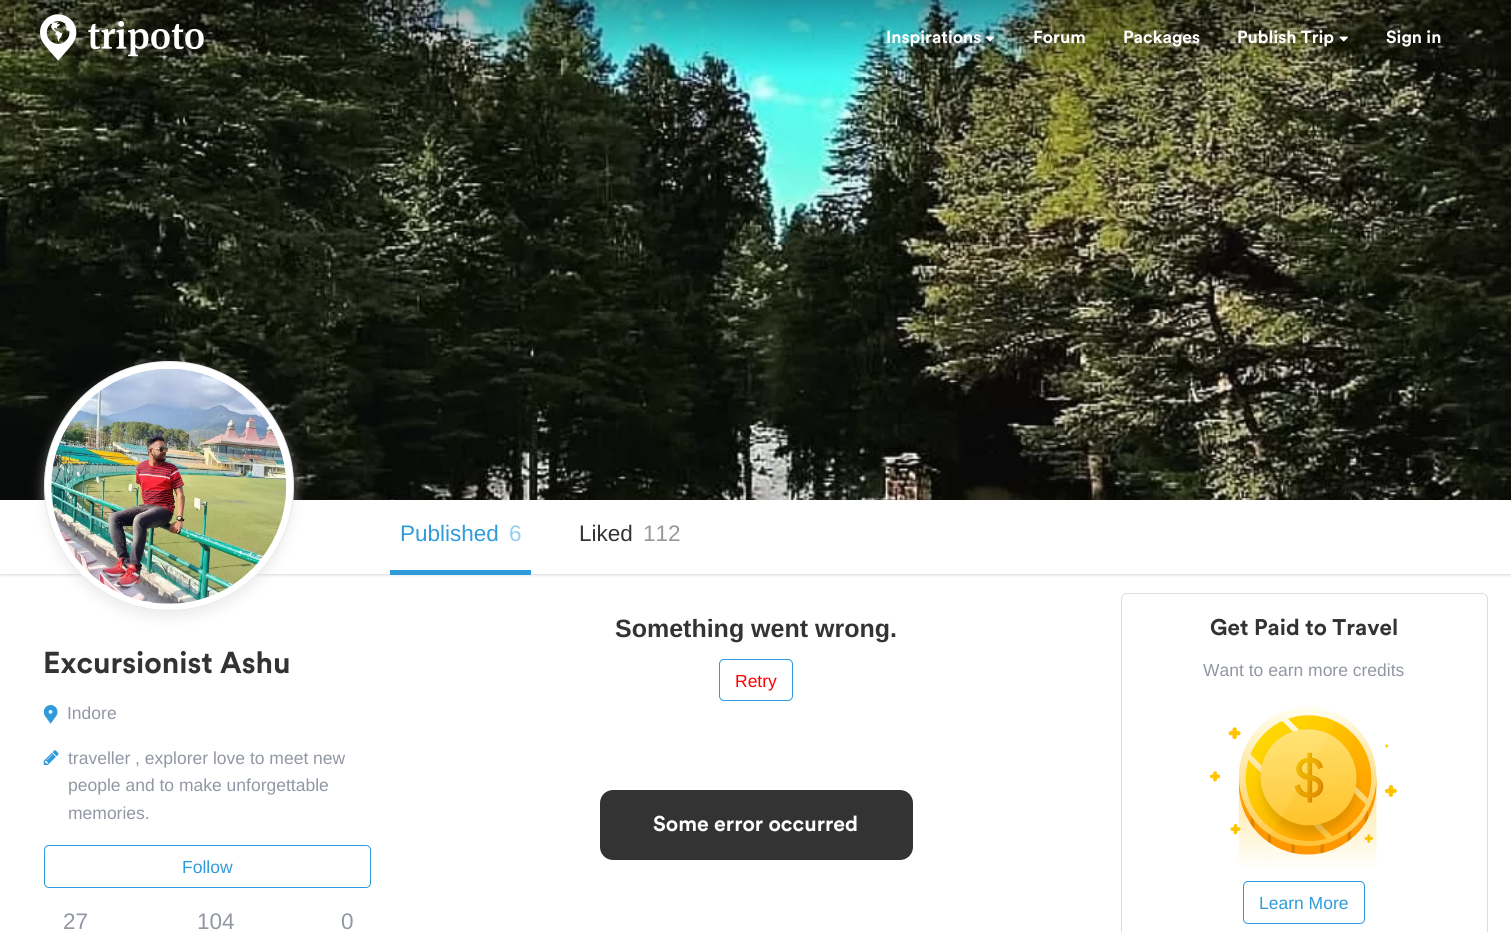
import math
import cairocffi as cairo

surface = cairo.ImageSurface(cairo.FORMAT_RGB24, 1511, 932)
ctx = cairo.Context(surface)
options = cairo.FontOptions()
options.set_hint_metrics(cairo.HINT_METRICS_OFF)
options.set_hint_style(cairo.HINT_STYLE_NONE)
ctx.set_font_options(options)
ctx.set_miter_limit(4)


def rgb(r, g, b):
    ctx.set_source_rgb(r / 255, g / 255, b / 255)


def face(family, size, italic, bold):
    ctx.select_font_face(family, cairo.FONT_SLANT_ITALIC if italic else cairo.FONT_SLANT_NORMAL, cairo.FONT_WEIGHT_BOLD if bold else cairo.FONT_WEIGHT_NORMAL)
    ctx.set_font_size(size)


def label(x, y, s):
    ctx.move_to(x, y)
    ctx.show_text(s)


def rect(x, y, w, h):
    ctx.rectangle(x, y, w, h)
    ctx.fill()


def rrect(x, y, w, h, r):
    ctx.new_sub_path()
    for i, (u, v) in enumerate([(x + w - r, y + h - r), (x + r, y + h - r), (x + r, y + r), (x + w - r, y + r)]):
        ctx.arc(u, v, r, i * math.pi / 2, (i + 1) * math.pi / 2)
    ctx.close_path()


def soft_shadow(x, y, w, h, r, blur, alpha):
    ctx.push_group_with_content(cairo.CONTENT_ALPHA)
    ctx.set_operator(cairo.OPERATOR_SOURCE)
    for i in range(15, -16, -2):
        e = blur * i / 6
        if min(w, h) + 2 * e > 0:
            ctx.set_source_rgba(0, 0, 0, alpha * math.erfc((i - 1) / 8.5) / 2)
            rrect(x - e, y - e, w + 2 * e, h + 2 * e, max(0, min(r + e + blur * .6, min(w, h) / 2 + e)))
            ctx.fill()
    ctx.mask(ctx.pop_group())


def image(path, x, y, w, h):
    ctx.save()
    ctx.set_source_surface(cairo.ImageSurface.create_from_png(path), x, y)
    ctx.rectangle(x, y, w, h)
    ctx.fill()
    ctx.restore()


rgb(255, 255, 255)
ctx.paint()
rgb(0, 0, 0)
soft_shadow(0, 500, 1511, 74, 0, 2, 0.25)
image('image3.png', 0, 0, 1511, 500)
image('image0.png', 40, 14, 164, 47)
face('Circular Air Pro', 17.5, 0, 1)
rgb(255, 255, 255)
label(886, 43, 'Inspirations')
image('image1.png', 985, 36, 10, 6)
label(1033, 43, 'Forum')
label(1123, 43, 'Packages')
label(1237, 43, 'Publish Trip')
image('image2.png', 1339, 36, 9, 6)
label(1386, 43, 'Sign in')
rect(0, 500, 1511, 74)
rgb(47, 155, 219)
rect(390, 570, 141, 5)
face('Liberation Sans', 22.5, 0, 0)
label(400, 541, 'Published')
rgb(151, 205, 237)
label(509, 541, '6')
rgb(51, 51, 51)
label(579, 541, 'Liked')
rgb(153, 153, 153)
label(643, 541, '112')
rgb(221, 221, 221)
soft_shadow(44, 368, 250, 250, 125, 6, 0.5)
rgb(255, 255, 255)
ctx.arc(169, 486, 125, 0, 2 * math.pi)
ctx.fill()
ctx.arc(169, 486, 124.5, 0, 2 * math.pi)
ctx.set_source_rgba(0.569, 0.592, 0.639, 0.2)
ctx.set_line_width(1)
ctx.stroke()
image('image4.png', 51, 369, 236, 235)
face('Circular Air Pro', 30, 0, 1)
rgb(51, 51, 51)
label(43, 673, 'Excursionist Ashu')
image('image5.png', 44, 705, 14, 19)
face('Liberation Sans', 17.5, 0, 0)
rgb(145, 151, 163)
label(67, 719, 'Indore')
image('image6.png', 43, 750, 16, 15)
label(68, 764, 'traveller , explorer love to meet new')
label(68, 791, 'people and to make unforgettable')
label(68, 819, 'memories.')
rrect(44.5, 845.5, 326, 42, 4.5)
rgb(47, 155, 219)
ctx.stroke()
label(182, 873, 'Follow')
face('Liberation Sans', 22.5, 0, 0)
rgb(145, 151, 163)
label(63, 929, '27')
label(197, 929, '104')
label(341, 929, '0')
face('Liberation Sans', 25, 0, 1)
rgb(51, 51, 51)
label(615, 637, 'Something went wrong.')
rrect(719.5, 659.5, 73, 41, 4.5)
rgb(47, 155, 219)
ctx.stroke()
face('Liberation Sans', 17.5, 0, 0)
rgb(255, 0, 0)
label(735, 687, 'Retry')
rrect(1121.5, 593.5, 366, 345, 5.5)
rgb(221, 221, 221)
ctx.stroke()
face('Circular Air Pro', 22.5, 0, 1)
rgb(51, 51, 51)
label(1210, 635, 'Get Paid to Travel')
face('Liberation Sans', 17.5, 0, 0)
rgb(145, 151, 163)
label(1203, 676, 'Want to earn more credits')
image('image7.png', 1210, 706, 187, 161)
rrect(1243.5, 881.5, 121, 42, 4.5)
rgb(47, 155, 219)
ctx.stroke()
label(1259, 909, 'Learn More')
rgb(51, 51, 51)
rrect(600, 790, 313, 70, 13)
ctx.fill()
face('Circular Air Pro', 21.25, 0, 1)
rgb(255, 255, 255)
label(653, 831, 'Some error occurred')
surface.write_to_png('render.png')
